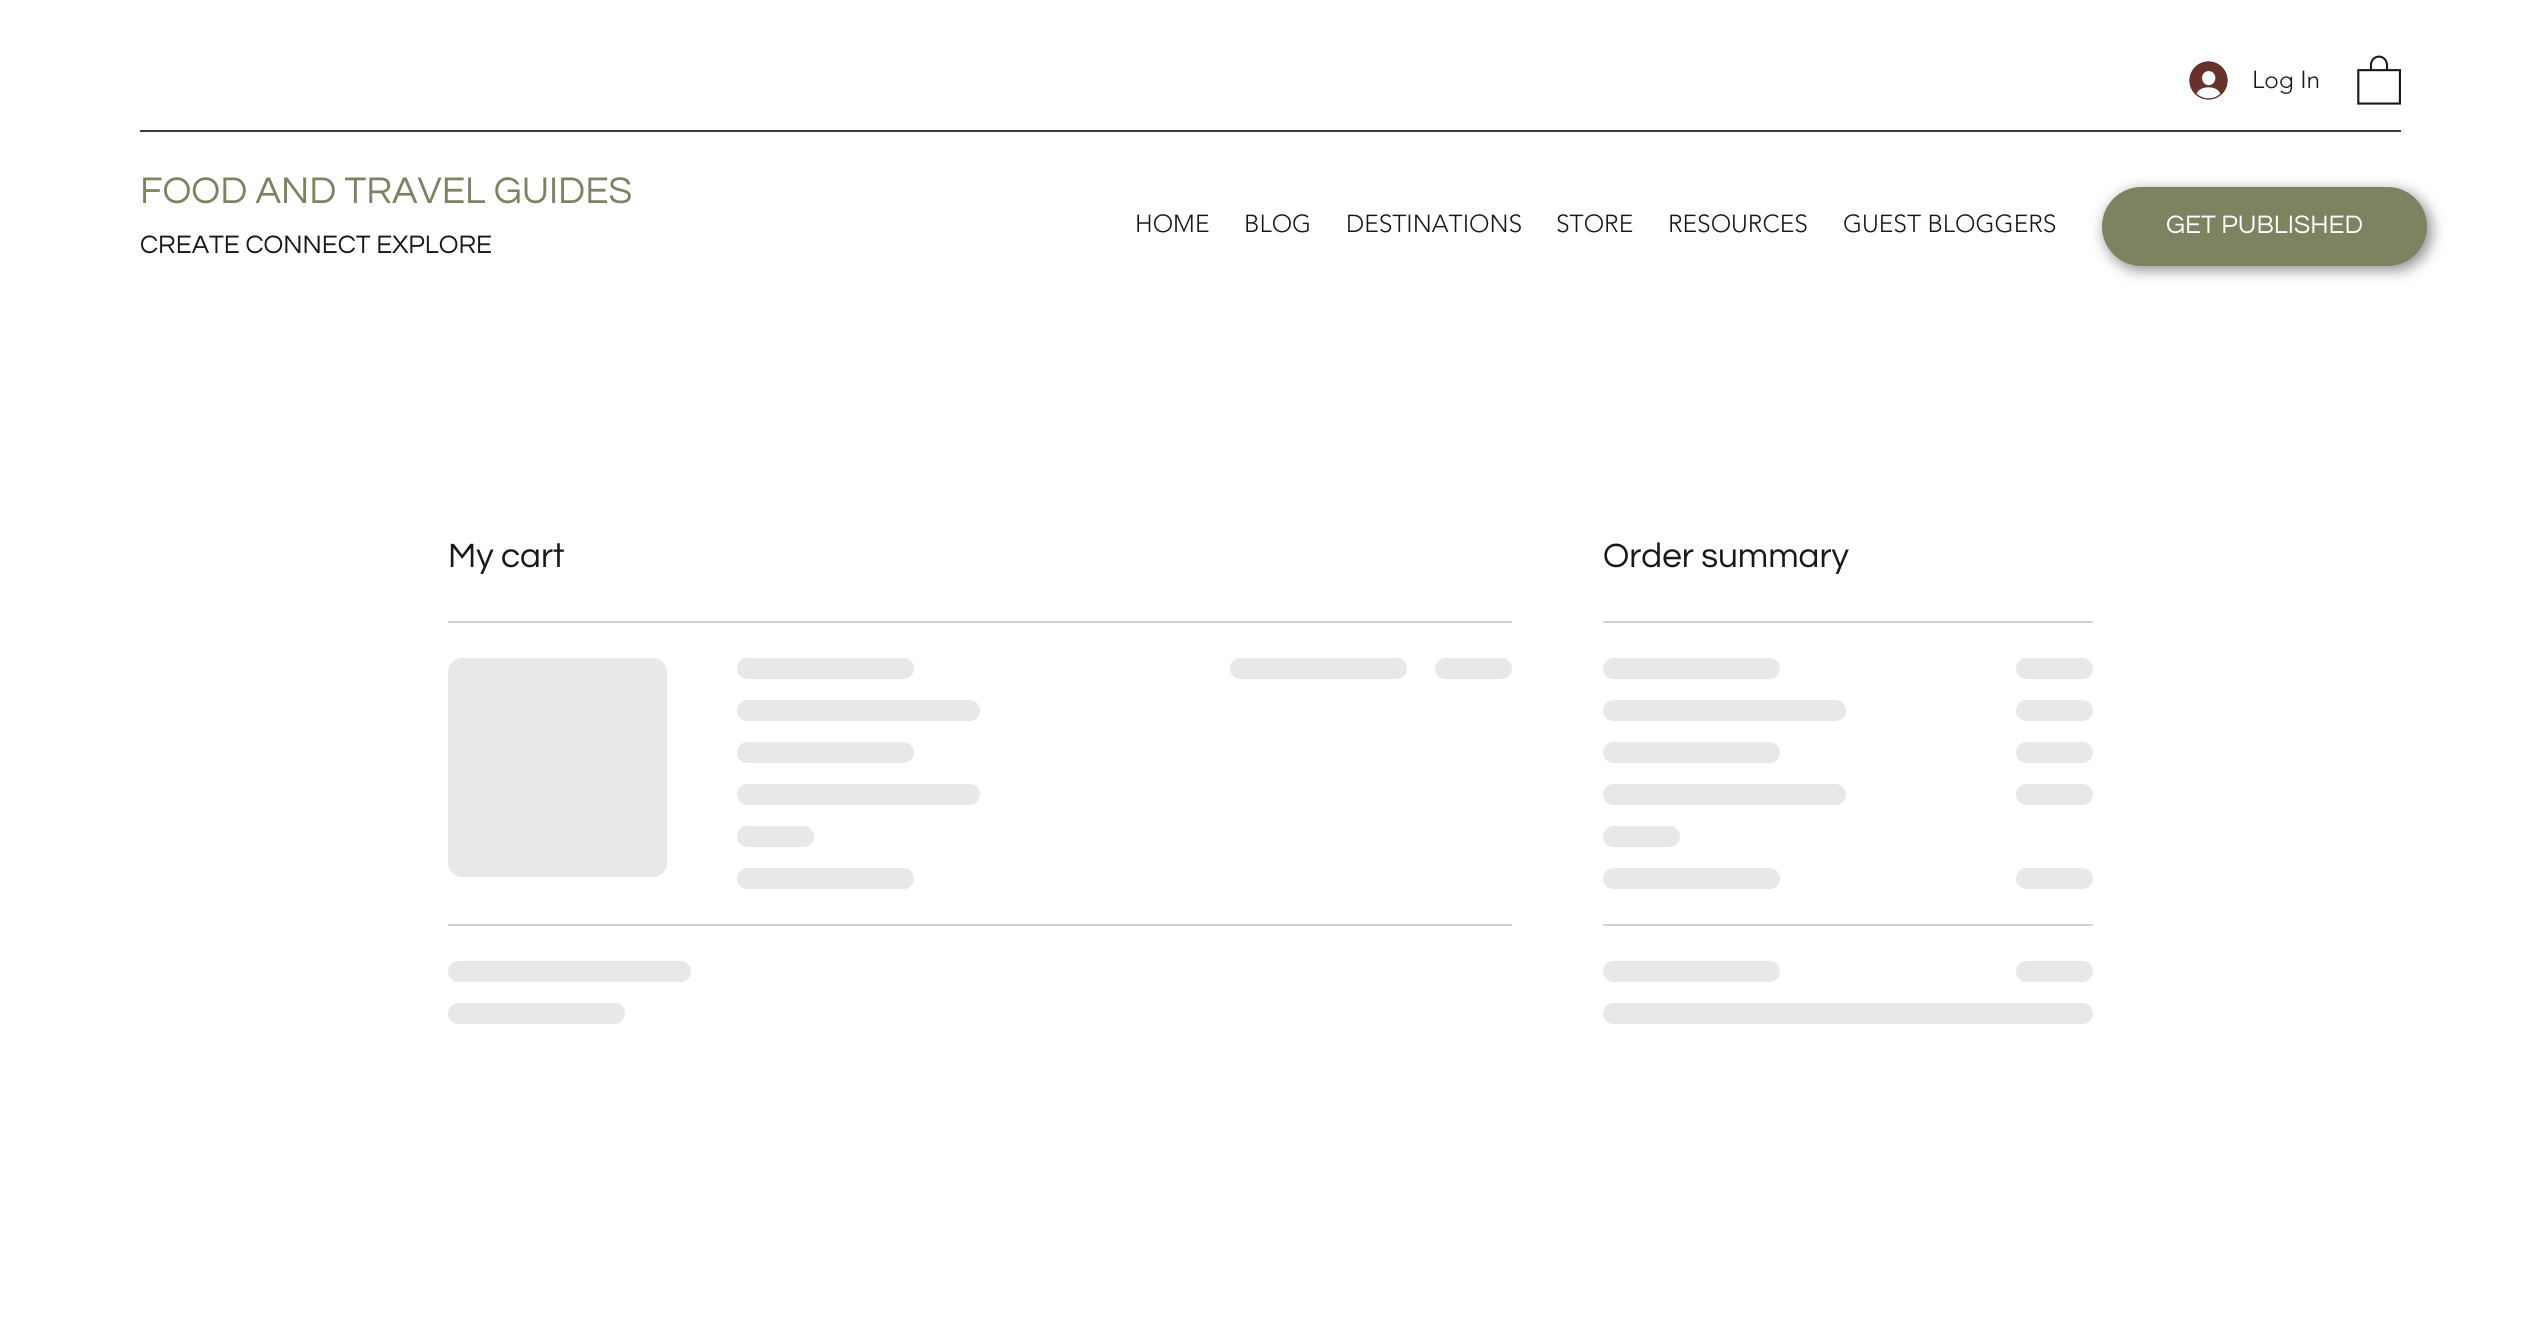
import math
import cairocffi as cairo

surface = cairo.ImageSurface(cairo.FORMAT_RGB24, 2540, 1341)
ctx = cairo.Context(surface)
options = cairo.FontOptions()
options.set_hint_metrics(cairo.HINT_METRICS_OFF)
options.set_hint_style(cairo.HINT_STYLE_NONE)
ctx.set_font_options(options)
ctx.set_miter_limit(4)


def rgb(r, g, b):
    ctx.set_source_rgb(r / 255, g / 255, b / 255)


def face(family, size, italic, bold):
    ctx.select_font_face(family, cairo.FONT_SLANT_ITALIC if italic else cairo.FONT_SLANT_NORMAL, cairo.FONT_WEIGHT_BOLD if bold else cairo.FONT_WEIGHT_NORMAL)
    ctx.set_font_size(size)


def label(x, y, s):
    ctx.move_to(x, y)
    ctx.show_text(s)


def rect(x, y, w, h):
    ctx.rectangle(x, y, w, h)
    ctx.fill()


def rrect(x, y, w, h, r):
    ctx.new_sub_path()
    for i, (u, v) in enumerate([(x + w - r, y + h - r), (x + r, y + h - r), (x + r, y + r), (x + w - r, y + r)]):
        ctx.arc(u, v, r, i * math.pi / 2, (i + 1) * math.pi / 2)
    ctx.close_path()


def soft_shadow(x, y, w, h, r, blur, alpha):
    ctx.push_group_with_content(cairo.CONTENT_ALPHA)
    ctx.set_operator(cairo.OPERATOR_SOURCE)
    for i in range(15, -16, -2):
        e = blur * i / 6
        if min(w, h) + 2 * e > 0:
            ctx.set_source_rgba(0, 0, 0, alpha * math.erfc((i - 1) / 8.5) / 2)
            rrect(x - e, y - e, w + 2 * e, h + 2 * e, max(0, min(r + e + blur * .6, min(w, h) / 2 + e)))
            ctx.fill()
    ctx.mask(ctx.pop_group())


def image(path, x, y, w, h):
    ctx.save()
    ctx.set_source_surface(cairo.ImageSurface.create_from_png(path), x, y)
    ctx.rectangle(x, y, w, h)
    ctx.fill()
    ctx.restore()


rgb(255, 255, 255)
ctx.paint()
image('image0.png', 2189, 61, 39, 39)
face('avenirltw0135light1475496 Light', 24.5, 0, 0)
rgb(24, 24, 24)
label(2252, 88, 'Log In')
image('image1.png', 2357, 55, 44, 50)
rgb(59, 59, 59)
rect(140, 130, 2261, 2)
face('Questrial', 38.5, 0, 0)
rgb(125, 130, 96)
label(140, 203, 'FOOD AND TRAVEL GUIDES')
face('Questrial', 26.25, 0, 0)
rgb(24, 24, 24)
label(140, 253, 'CREATE CONNECT EXPLORE')
face('avenirltw0135light1475496 Light', 24.5, 0, 0)
label(1135, 232, 'HOME')
label(1244, 232, 'BLOG')
label(1346, 232, 'DESTINATIONS')
label(1556, 232, 'STORE')
label(1668, 232, 'RESOURCES')
label(1843, 232, 'GUEST BLOGGERS')
rgb(0, 0, 0)
soft_shadow(2105, 191, 326, 79, 39.5, 7, 0.45)
rgb(125, 130, 96)
rrect(2102, 187, 325, 79, 39.5)
ctx.fill()
face('Questrial', 26.25, 0, 0)
rgb(255, 255, 255)
label(2166, 233, 'GET PUBLISHED')
rgb(209, 209, 209)
rect(448, 621, 1064, 2)
face('Questrial', 35, 0, 0)
rgb(24, 24, 24)
label(448, 567, 'My cart')
gradient = cairo.LinearGradient(448, 767, 1323, 767)
gradient.add_color_stop_rgba(0.25, 0.91, 0.91, 0.91, 1)
gradient.add_color_stop_rgba(0.37, 0.82, 0.82, 0.82, 1)
gradient.add_color_stop_rgba(0.63, 0.91, 0.91, 0.91, 1)
ctx.set_source(gradient)
rrect(448, 658, 219, 219, 14)
ctx.fill()
gradient = cairo.LinearGradient(737, 669, 1444, 669)
gradient.add_color_stop_rgba(0.25, 0.91, 0.91, 0.91, 1)
gradient.add_color_stop_rgba(0.37, 0.82, 0.82, 0.82, 1)
gradient.add_color_stop_rgba(0.63, 0.91, 0.91, 0.91, 1)
ctx.set_source(gradient)
rrect(737, 658, 177, 21, 10.5)
ctx.fill()
gradient = cairo.LinearGradient(737, 711, 1710, 711)
gradient.add_color_stop_rgba(0.25, 0.91, 0.91, 0.91, 1)
gradient.add_color_stop_rgba(0.37, 0.82, 0.82, 0.82, 1)
gradient.add_color_stop_rgba(0.63, 0.91, 0.91, 0.91, 1)
ctx.set_source(gradient)
rrect(737, 700, 243, 21, 10.5)
ctx.fill()
gradient = cairo.LinearGradient(737, 753, 1444, 753)
gradient.add_color_stop_rgba(0.25, 0.91, 0.91, 0.91, 1)
gradient.add_color_stop_rgba(0.37, 0.82, 0.82, 0.82, 1)
gradient.add_color_stop_rgba(0.63, 0.91, 0.91, 0.91, 1)
ctx.set_source(gradient)
rrect(737, 742, 177, 21, 10.5)
ctx.fill()
gradient = cairo.LinearGradient(737, 795, 1710, 795)
gradient.add_color_stop_rgba(0.25, 0.91, 0.91, 0.91, 1)
gradient.add_color_stop_rgba(0.37, 0.82, 0.82, 0.82, 1)
gradient.add_color_stop_rgba(0.63, 0.91, 0.91, 0.91, 1)
ctx.set_source(gradient)
rrect(737, 784, 243, 21, 10.5)
ctx.fill()
gradient = cairo.LinearGradient(737, 837, 1045, 837)
gradient.add_color_stop_rgba(0.25, 0.91, 0.91, 0.91, 1)
gradient.add_color_stop_rgba(0.37, 0.82, 0.82, 0.82, 1)
gradient.add_color_stop_rgba(0.63, 0.91, 0.91, 0.91, 1)
ctx.set_source(gradient)
rrect(737, 826, 77, 21, 10.5)
ctx.fill()
gradient = cairo.LinearGradient(737, 879, 1444, 879)
gradient.add_color_stop_rgba(0.25, 0.91, 0.91, 0.91, 1)
gradient.add_color_stop_rgba(0.37, 0.82, 0.82, 0.82, 1)
gradient.add_color_stop_rgba(0.63, 0.91, 0.91, 0.91, 1)
ctx.set_source(gradient)
rrect(737, 868, 177, 21, 10.5)
ctx.fill()
gradient = cairo.LinearGradient(1230, 669, 1937, 669)
gradient.add_color_stop_rgba(0.25, 0.91, 0.91, 0.91, 1)
gradient.add_color_stop_rgba(0.37, 0.82, 0.82, 0.82, 1)
gradient.add_color_stop_rgba(0.63, 0.91, 0.91, 0.91, 1)
ctx.set_source(gradient)
rrect(1230, 658, 177, 21, 10.5)
ctx.fill()
gradient = cairo.LinearGradient(1435, 669, 1743, 669)
gradient.add_color_stop_rgba(0.25, 0.91, 0.91, 0.91, 1)
gradient.add_color_stop_rgba(0.37, 0.82, 0.82, 0.82, 1)
gradient.add_color_stop_rgba(0.63, 0.91, 0.91, 0.91, 1)
ctx.set_source(gradient)
rrect(1435, 658, 77, 21, 10.5)
ctx.fill()
rgb(209, 209, 209)
rect(448, 924, 1064, 2)
gradient = cairo.LinearGradient(448, 971, 1421, 971)
gradient.add_color_stop_rgba(0.25, 0.91, 0.91, 0.91, 1)
gradient.add_color_stop_rgba(0.37, 0.82, 0.82, 0.82, 1)
gradient.add_color_stop_rgba(0.63, 0.91, 0.91, 0.91, 1)
ctx.set_source(gradient)
rrect(448, 961, 243, 21, 10.5)
ctx.fill()
gradient = cairo.LinearGradient(448, 1013, 1155, 1013)
gradient.add_color_stop_rgba(0.25, 0.91, 0.91, 0.91, 1)
gradient.add_color_stop_rgba(0.37, 0.82, 0.82, 0.82, 1)
gradient.add_color_stop_rgba(0.63, 0.91, 0.91, 0.91, 1)
ctx.set_source(gradient)
rrect(448, 1003, 177, 21, 10.5)
ctx.fill()
rgb(209, 209, 209)
rect(1603, 621, 490, 2)
rgb(24, 24, 24)
label(1603, 567, 'Order summary')
gradient = cairo.LinearGradient(1603, 669, 2310, 669)
gradient.add_color_stop_rgba(0.25, 0.91, 0.91, 0.91, 1)
gradient.add_color_stop_rgba(0.37, 0.82, 0.82, 0.82, 1)
gradient.add_color_stop_rgba(0.63, 0.91, 0.91, 0.91, 1)
ctx.set_source(gradient)
rrect(1603, 658, 177, 21, 10.5)
ctx.fill()
gradient = cairo.LinearGradient(2016, 669, 2324, 669)
gradient.add_color_stop_rgba(0.25, 0.91, 0.91, 0.91, 1)
gradient.add_color_stop_rgba(0.37, 0.82, 0.82, 0.82, 1)
gradient.add_color_stop_rgba(0.63, 0.91, 0.91, 0.91, 1)
ctx.set_source(gradient)
rrect(2016, 658, 77, 21, 10.5)
ctx.fill()
gradient = cairo.LinearGradient(1603, 711, 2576, 711)
gradient.add_color_stop_rgba(0.25, 0.91, 0.91, 0.91, 1)
gradient.add_color_stop_rgba(0.37, 0.82, 0.82, 0.82, 1)
gradient.add_color_stop_rgba(0.63, 0.91, 0.91, 0.91, 1)
ctx.set_source(gradient)
rrect(1603, 700, 243, 21, 10.5)
ctx.fill()
gradient = cairo.LinearGradient(2016, 711, 2324, 711)
gradient.add_color_stop_rgba(0.25, 0.91, 0.91, 0.91, 1)
gradient.add_color_stop_rgba(0.37, 0.82, 0.82, 0.82, 1)
gradient.add_color_stop_rgba(0.63, 0.91, 0.91, 0.91, 1)
ctx.set_source(gradient)
rrect(2016, 700, 77, 21, 10.5)
ctx.fill()
gradient = cairo.LinearGradient(1603, 753, 2310, 753)
gradient.add_color_stop_rgba(0.25, 0.91, 0.91, 0.91, 1)
gradient.add_color_stop_rgba(0.37, 0.82, 0.82, 0.82, 1)
gradient.add_color_stop_rgba(0.63, 0.91, 0.91, 0.91, 1)
ctx.set_source(gradient)
rrect(1603, 742, 177, 21, 10.5)
ctx.fill()
gradient = cairo.LinearGradient(2016, 753, 2324, 753)
gradient.add_color_stop_rgba(0.25, 0.91, 0.91, 0.91, 1)
gradient.add_color_stop_rgba(0.37, 0.82, 0.82, 0.82, 1)
gradient.add_color_stop_rgba(0.63, 0.91, 0.91, 0.91, 1)
ctx.set_source(gradient)
rrect(2016, 742, 77, 21, 10.5)
ctx.fill()
gradient = cairo.LinearGradient(1603, 795, 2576, 795)
gradient.add_color_stop_rgba(0.25, 0.91, 0.91, 0.91, 1)
gradient.add_color_stop_rgba(0.37, 0.82, 0.82, 0.82, 1)
gradient.add_color_stop_rgba(0.63, 0.91, 0.91, 0.91, 1)
ctx.set_source(gradient)
rrect(1603, 784, 243, 21, 10.5)
ctx.fill()
gradient = cairo.LinearGradient(2016, 795, 2324, 795)
gradient.add_color_stop_rgba(0.25, 0.91, 0.91, 0.91, 1)
gradient.add_color_stop_rgba(0.37, 0.82, 0.82, 0.82, 1)
gradient.add_color_stop_rgba(0.63, 0.91, 0.91, 0.91, 1)
ctx.set_source(gradient)
rrect(2016, 784, 77, 21, 10.5)
ctx.fill()
gradient = cairo.LinearGradient(1603, 837, 1911, 837)
gradient.add_color_stop_rgba(0.25, 0.91, 0.91, 0.91, 1)
gradient.add_color_stop_rgba(0.37, 0.82, 0.82, 0.82, 1)
gradient.add_color_stop_rgba(0.63, 0.91, 0.91, 0.91, 1)
ctx.set_source(gradient)
rrect(1603, 826, 77, 21, 10.5)
ctx.fill()
gradient = cairo.LinearGradient(1603, 879, 2310, 879)
gradient.add_color_stop_rgba(0.25, 0.91, 0.91, 0.91, 1)
gradient.add_color_stop_rgba(0.37, 0.82, 0.82, 0.82, 1)
gradient.add_color_stop_rgba(0.63, 0.91, 0.91, 0.91, 1)
ctx.set_source(gradient)
rrect(1603, 868, 177, 21, 10.5)
ctx.fill()
gradient = cairo.LinearGradient(2016, 879, 2324, 879)
gradient.add_color_stop_rgba(0.25, 0.91, 0.91, 0.91, 1)
gradient.add_color_stop_rgba(0.37, 0.82, 0.82, 0.82, 1)
gradient.add_color_stop_rgba(0.63, 0.91, 0.91, 0.91, 1)
ctx.set_source(gradient)
rrect(2016, 868, 77, 21, 10.5)
ctx.fill()
rgb(209, 209, 209)
rect(1603, 924, 490, 2)
gradient = cairo.LinearGradient(1603, 971, 2310, 971)
gradient.add_color_stop_rgba(0.25, 0.91, 0.91, 0.91, 1)
gradient.add_color_stop_rgba(0.37, 0.82, 0.82, 0.82, 1)
gradient.add_color_stop_rgba(0.63, 0.91, 0.91, 0.91, 1)
ctx.set_source(gradient)
rrect(1603, 961, 177, 21, 10.5)
ctx.fill()
gradient = cairo.LinearGradient(2016, 971, 2324, 971)
gradient.add_color_stop_rgba(0.25, 0.91, 0.91, 0.91, 1)
gradient.add_color_stop_rgba(0.37, 0.82, 0.82, 0.82, 1)
gradient.add_color_stop_rgba(0.63, 0.91, 0.91, 0.91, 1)
ctx.set_source(gradient)
rrect(2016, 961, 77, 21, 10.5)
ctx.fill()
gradient = cairo.LinearGradient(1603, 1013, 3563, 1013)
gradient.add_color_stop_rgba(0.25, 0.91, 0.91, 0.91, 1)
gradient.add_color_stop_rgba(0.37, 0.82, 0.82, 0.82, 1)
gradient.add_color_stop_rgba(0.63, 0.91, 0.91, 0.91, 1)
ctx.set_source(gradient)
rrect(1603, 1003, 490, 21, 10.5)
ctx.fill()
surface.write_to_png('render.png')
